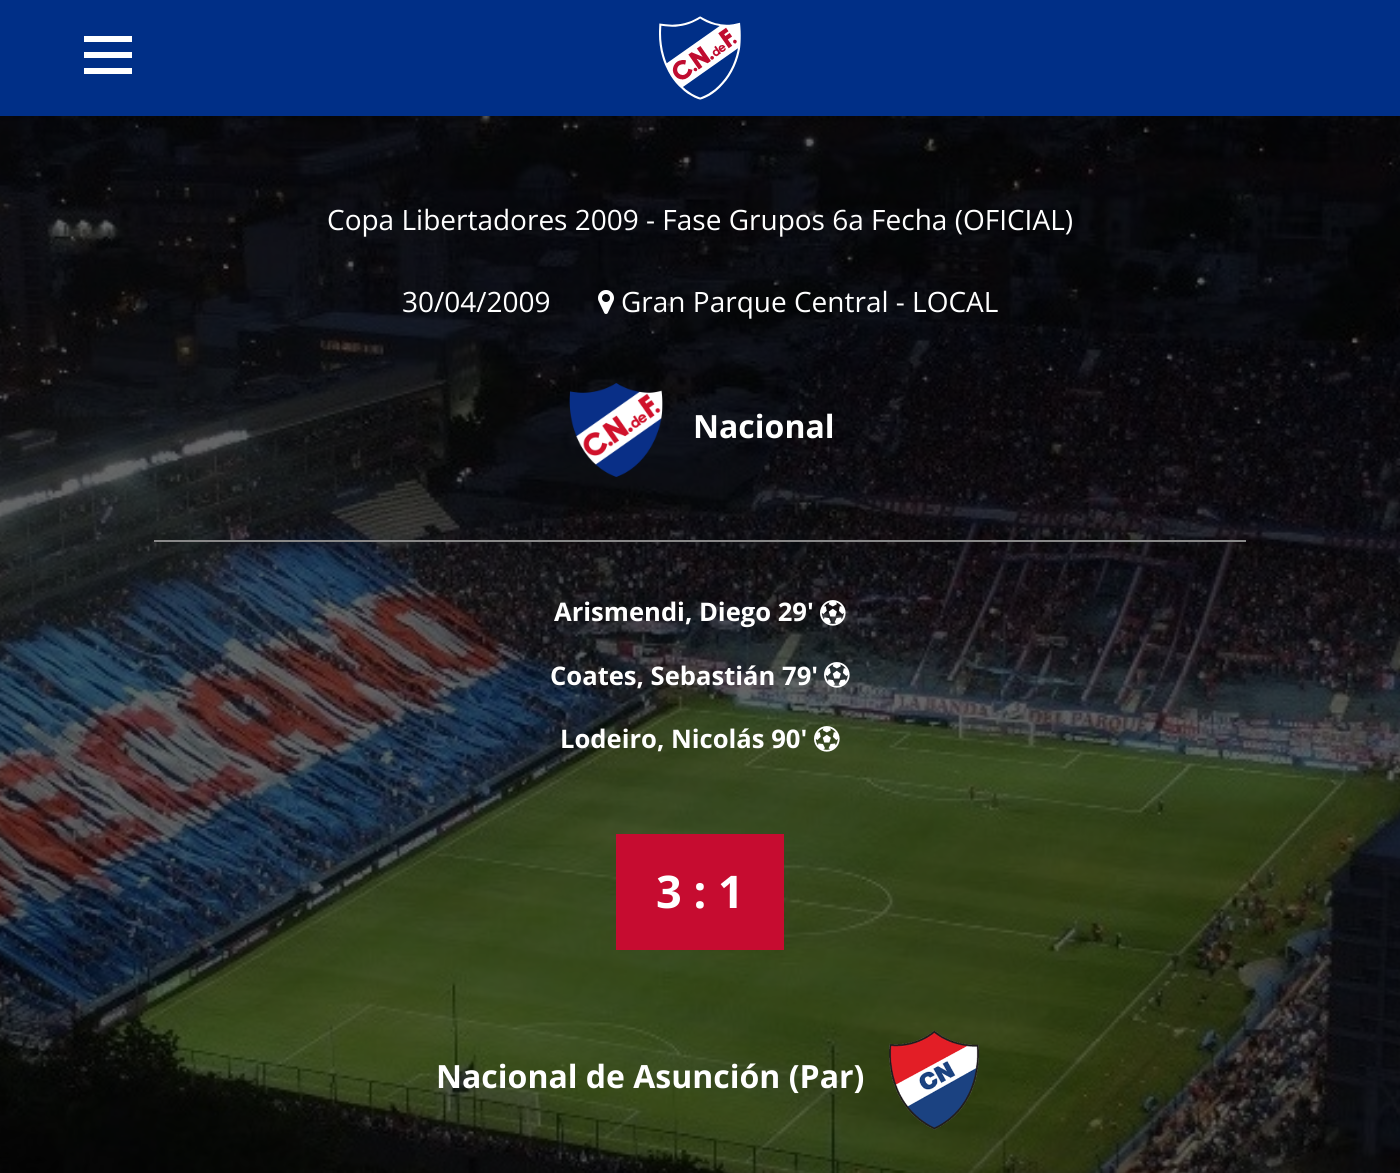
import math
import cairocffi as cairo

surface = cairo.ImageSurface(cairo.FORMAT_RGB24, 1400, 1173)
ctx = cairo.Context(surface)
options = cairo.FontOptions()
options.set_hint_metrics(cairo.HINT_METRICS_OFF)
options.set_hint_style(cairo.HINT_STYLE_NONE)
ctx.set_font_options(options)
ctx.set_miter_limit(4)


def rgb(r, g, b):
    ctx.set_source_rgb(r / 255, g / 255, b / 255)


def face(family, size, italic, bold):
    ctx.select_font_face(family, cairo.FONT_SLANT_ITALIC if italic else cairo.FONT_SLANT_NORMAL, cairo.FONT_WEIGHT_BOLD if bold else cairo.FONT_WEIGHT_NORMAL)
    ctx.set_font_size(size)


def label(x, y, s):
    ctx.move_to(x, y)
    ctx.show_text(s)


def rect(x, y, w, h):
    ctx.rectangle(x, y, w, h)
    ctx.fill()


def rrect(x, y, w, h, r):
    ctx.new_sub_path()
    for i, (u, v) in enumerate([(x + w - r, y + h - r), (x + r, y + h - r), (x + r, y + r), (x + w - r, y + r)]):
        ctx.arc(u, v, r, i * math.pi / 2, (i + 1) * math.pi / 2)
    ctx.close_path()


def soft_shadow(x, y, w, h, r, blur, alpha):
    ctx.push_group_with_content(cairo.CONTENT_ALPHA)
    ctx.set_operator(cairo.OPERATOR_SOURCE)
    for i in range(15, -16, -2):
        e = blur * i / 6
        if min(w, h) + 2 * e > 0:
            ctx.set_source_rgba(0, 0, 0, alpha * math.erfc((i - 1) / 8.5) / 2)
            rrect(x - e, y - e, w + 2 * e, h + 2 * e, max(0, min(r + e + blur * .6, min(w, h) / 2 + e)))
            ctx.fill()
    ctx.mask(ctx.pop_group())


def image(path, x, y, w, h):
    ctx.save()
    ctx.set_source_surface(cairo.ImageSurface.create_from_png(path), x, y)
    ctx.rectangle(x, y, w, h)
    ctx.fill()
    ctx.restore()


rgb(255, 255, 255)
ctx.paint()
image('image1.png', 0, 116, 1400, 1057)
rgb(0, 0, 0)
soft_shadow(0, 4, 1400, 116, 0, 4, 0.15)
rgb(0, 47, 135)
rect(0, 0, 1400, 116)
rgb(255, 255, 255)
rect(84, 36, 48, 6)
rect(84, 52, 48, 6)
rect(84, 68, 48, 6)
image('image0.png', 659, 16, 82, 84)
face('Open Sans', 28, 0, 0)
label(327, 230, 'Copa Libertadores 2009 - Fase Grupos 6a Fecha (OFICIAL)')
label(402, 312, '30/04/2009')
image('image2.png', 598, 290, 16, 24)
label(621, 312, 'Gran Parque Central - LOCAL')
image('image3.png', 569, 383, 94, 94)
face('Open Sans', 32, 0, 1)
label(693, 438, 'Nacional')
rgb(136, 136, 136)
rect(154, 540, 1092, 2)
face('Open Sans', 25.6, 0, 1)
rgb(255, 255, 255)
label(554, 621, 'Arismendi, Diego 29\'')
image('image4.png', 820, 600, 26, 26)
label(550, 685, 'Coates, Sebastián 79\'')
image('image5.png', 824, 662, 26, 26)
label(560, 748, 'Lodeiro, Nicolás 90\'')
image('image6.png', 814, 726, 26, 26)
rgb(198, 12, 48)
rect(616, 834, 168, 116)
face('Open Sans', 45, 0, 1)
rgb(255, 255, 255)
label(656, 908, '3 : 1')
face('Open Sans', 32, 0, 1)
label(436, 1088, 'Nacional de Asunción (Par)')
image('image7.png', 889, 1030, 90, 100)
surface.write_to_png('render.png')
